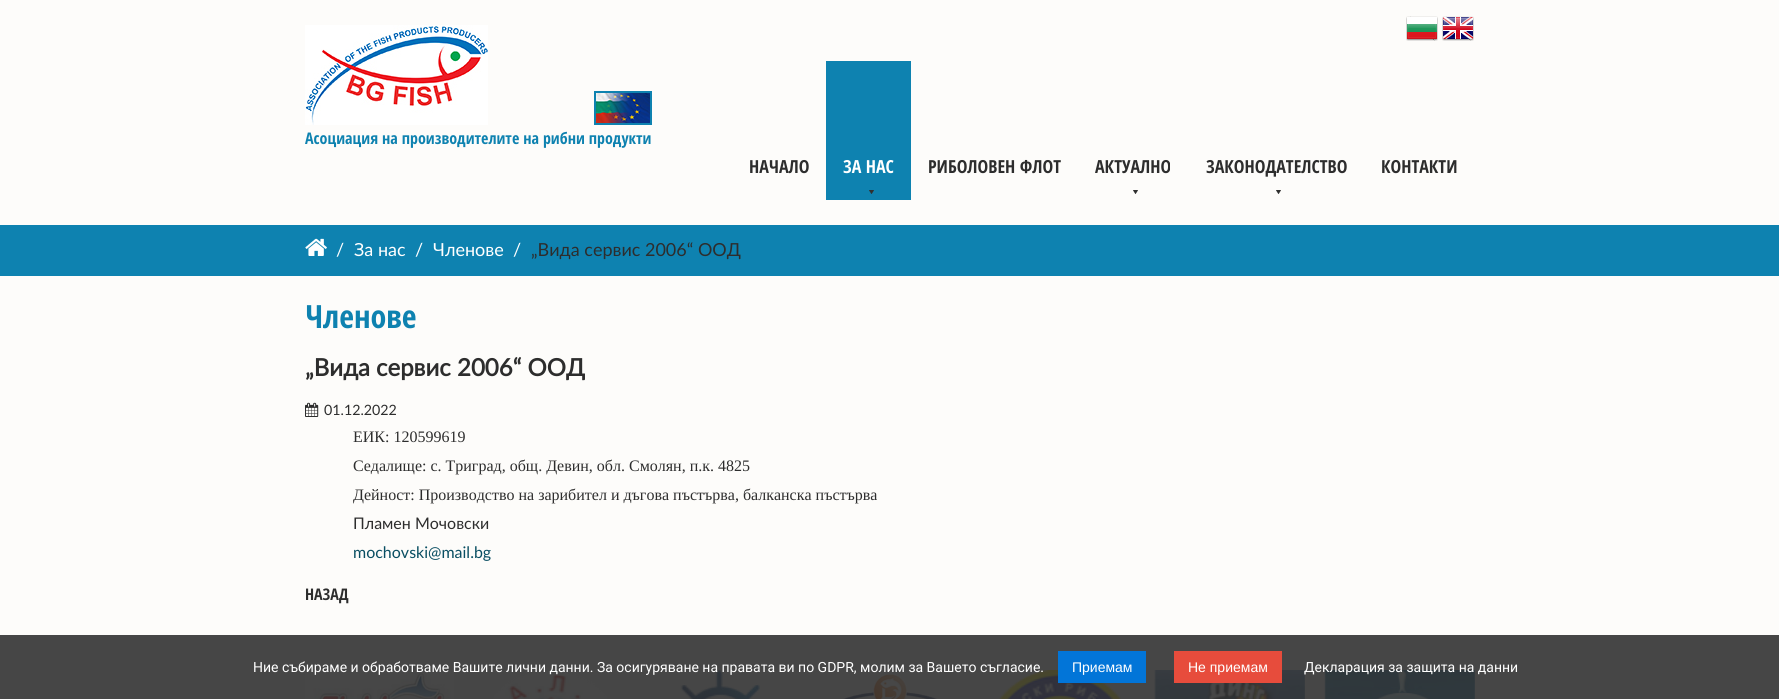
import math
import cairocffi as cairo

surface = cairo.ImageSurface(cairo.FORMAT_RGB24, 1779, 699)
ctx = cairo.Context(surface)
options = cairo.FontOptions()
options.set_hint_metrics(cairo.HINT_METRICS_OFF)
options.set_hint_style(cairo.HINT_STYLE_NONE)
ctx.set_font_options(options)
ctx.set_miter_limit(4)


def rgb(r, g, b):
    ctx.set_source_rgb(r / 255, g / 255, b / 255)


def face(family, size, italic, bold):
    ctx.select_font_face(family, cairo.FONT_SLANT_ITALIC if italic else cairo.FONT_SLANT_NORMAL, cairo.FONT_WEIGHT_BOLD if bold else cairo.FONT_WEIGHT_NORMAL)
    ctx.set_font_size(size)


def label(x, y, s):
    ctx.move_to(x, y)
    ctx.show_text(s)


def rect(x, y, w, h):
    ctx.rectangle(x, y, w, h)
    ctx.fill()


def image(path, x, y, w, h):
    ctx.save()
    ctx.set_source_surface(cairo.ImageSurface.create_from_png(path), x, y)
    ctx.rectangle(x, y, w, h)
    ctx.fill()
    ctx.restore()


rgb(253, 252, 250)
ctx.paint()
rgb(70, 70, 70)
rect(0, 635, 1779, 64)
image('image0.png', 305, 25, 183, 100)
ctx.rectangle(595, 92, 56, 32)
rgb(14, 130, 176)
ctx.stroke()
image('image1.png', 596, 93, 54, 30)
face('Open Sans Condensed', 16, 0, 1)
label(305, 144, 'Асоциация на производителите на рибни продукти')
image('image2.png', 1406, 16, 32, 25)
image('image3.png', 1442, 16, 32, 25)
face('Open Sans Condensed', 18, 0, 1)
rgb(45, 45, 45)
label(749, 173, 'НАЧАЛО')
rgb(14, 130, 176)
rect(826, 61, 85, 139)
rgb(255, 255, 255)
label(843, 173, 'ЗА НАС')
image('image4.png', 869, 190, 5, 4)
rgb(45, 45, 45)
label(928, 173, 'РИБОЛОВЕН ФЛОТ')
label(1095, 173, 'АКТУАЛНО')
image('image5.png', 1133, 190, 5, 4)
label(1206, 173, 'ЗАКОНОДАТЕЛСТВО')
image('image5.png', 1276, 190, 5, 4)
label(1381, 173, 'КОНТАКТИ')
rgb(14, 130, 176)
rect(0, 225, 1779, 51)
image('image6.png', 305, 238, 22, 18)
face('Lato', 18, 0, 0)
rgb(255, 255, 255)
label(336, 256, '/')
label(354, 256, 'За нас')
label(415, 256, '/')
label(433, 256, 'Членове')
label(513, 256, '/')
rgb(45, 45, 45)
label(531, 256, '„Вида сервис 2006“ ООД')
face('Open Sans Condensed', 32, 0, 1)
rgb(14, 130, 176)
label(305, 328, 'Членове')
face('Lato', 24, 0, 1)
rgb(45, 45, 45)
label(305, 376, '„Вида сервис 2006“ ООД')
image('image7.png', 305, 402, 14, 15)
face('Lato', 14.25, 0, 0)
label(324, 415, '01.12.2022')
face('Liberation Serif', 16, 0, 0)
label(353, 442, 'ЕИК: 120599619')
label(353, 471, 'Седалище: с. Триград, общ. Девин, обл. Смолян, п.к. 4825')
label(353, 500, 'Дейност: Производство на зарибител и дъгова пъстърва, балканска пъстърва')
face('Lato', 16, 0, 0)
label(353, 529, 'Пламен Мочовски')
rgb(9, 78, 98)
label(353, 558, 'mochovski@mail.bg')
face('Open Sans Condensed', 16, 0, 1)
rgb(45, 45, 45)
label(305, 600, 'НАЗАД')
image('image8.png', 305, 670, 150, 29)
image('image9.png', 493, 671, 114, 28)
image('image10.png', 680, 670, 80, 29)
image('image11.png', 842, 674, 96, 25)
image('image12.png', 999, 670, 122, 29)
face('Roboto', 14, 0, 0)
rgb(255, 255, 255)
label(253, 672, 'Ние събираме и обработваме Вашите лични данни. За осигуряване на правата ви по GDPR, молим за Вашето съгласие.')
rgb(2, 117, 216)
rect(1058, 651, 88, 32)
face('Liberation Sans', 14, 0, 0)
rgb(255, 255, 255)
label(1072, 672, 'Приемам')
image('image13.png', 1154, 670, 151, 29)
rgb(231, 76, 60)
rect(1174, 651, 108, 32)
rgb(255, 255, 255)
label(1188, 672, 'Не приемам')
image('image14.png', 1324, 670, 151, 29)
face('Roboto', 14, 0, 0)
label(1304, 672, 'Декларация за защита на данни')
surface.write_to_png('render.png')
